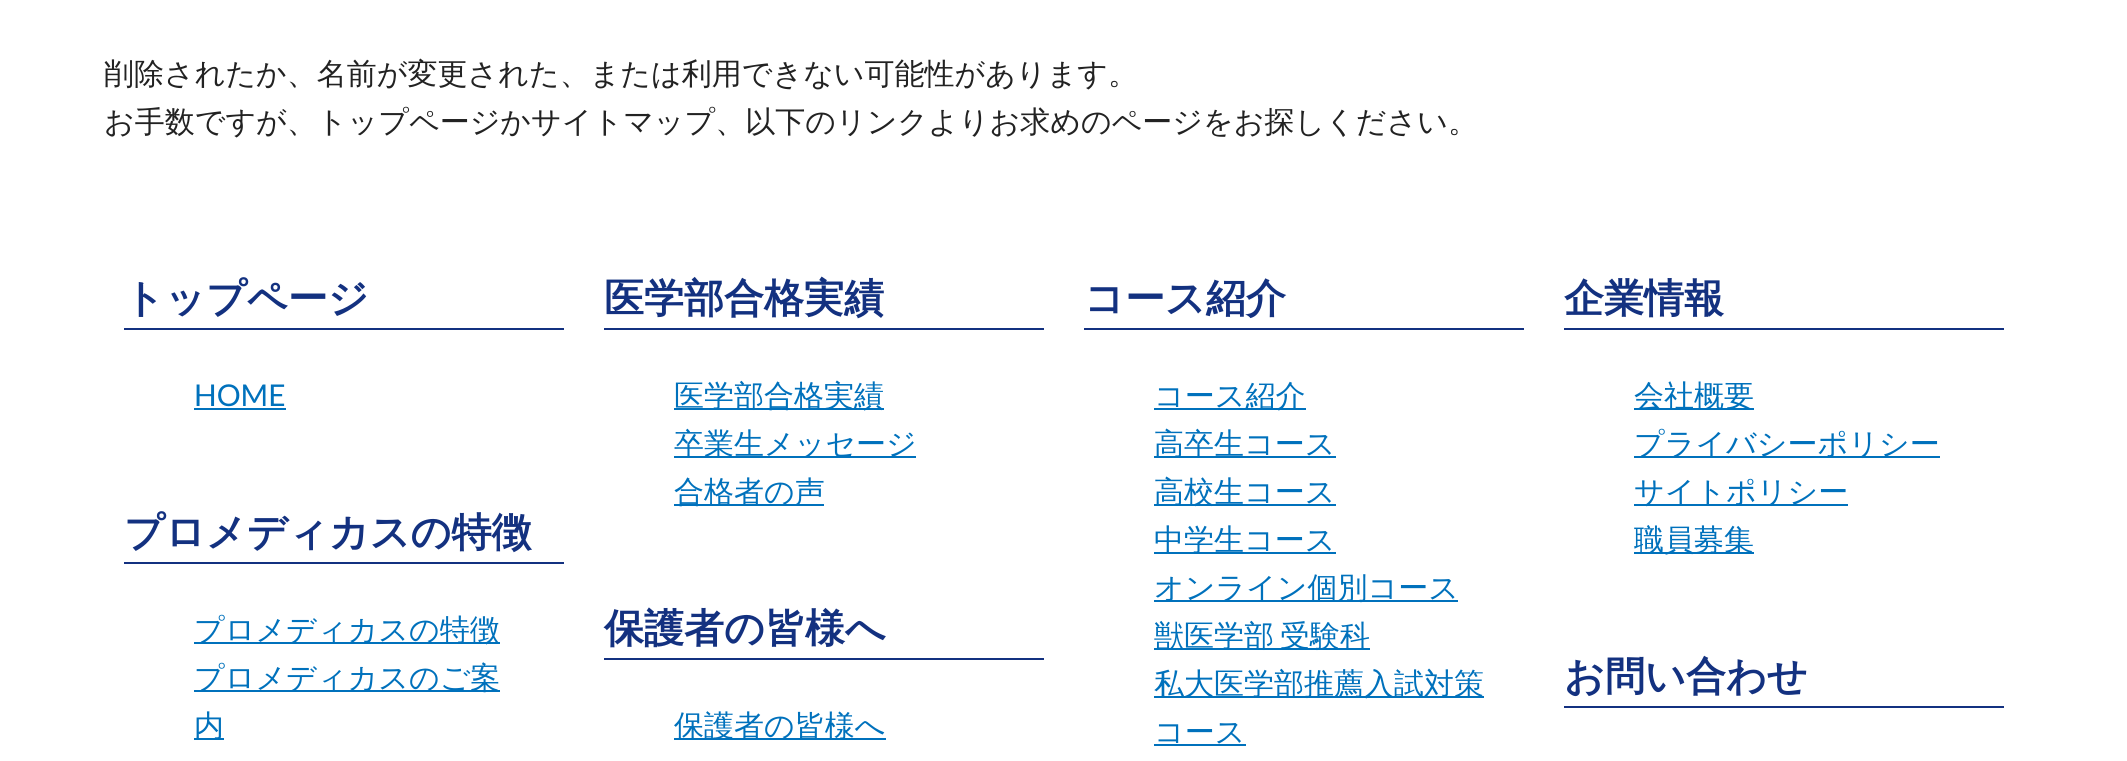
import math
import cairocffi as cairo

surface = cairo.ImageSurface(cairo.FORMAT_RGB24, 2127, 761)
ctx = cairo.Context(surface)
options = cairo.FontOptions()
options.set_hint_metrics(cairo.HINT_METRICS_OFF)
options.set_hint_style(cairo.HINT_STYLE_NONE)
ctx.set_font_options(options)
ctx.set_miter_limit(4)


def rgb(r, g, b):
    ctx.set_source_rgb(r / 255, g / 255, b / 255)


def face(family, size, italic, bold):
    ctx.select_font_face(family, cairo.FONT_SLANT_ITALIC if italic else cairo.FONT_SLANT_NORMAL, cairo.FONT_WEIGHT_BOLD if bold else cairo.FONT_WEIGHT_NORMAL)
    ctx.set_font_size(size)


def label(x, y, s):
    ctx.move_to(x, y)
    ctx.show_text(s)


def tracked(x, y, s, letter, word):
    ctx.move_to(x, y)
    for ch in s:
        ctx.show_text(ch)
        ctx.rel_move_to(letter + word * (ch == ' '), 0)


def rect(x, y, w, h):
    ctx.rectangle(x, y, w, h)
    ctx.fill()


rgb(255, 255, 255)
ctx.paint()
face('WenQuanYi Zen Hei Medium', 30, 0, 0)
rgb(34, 34, 34)
label(104, 84, '削除されたか、名前が変更された、または利用できない可能性があります。')
label(104, 132, 'お手数ですが、トップページかサイトマップ、以下のリンクよりお求めのページをお探しください。')
rgb(19, 49, 128)
rect(124, 328, 440, 2)
face('WenQuanYi Zen Hei', 40, 0, 1)
label(124, 312, 'トップページ')
face('Lato', 30, 0, 0)
rgb(0, 113, 188)
label(194, 406, 'HOME')
rect(194, 408, 92, 2)
rgb(19, 49, 128)
rect(124, 562, 440, 2)
face('WenQuanYi Zen Hei', 40, 0, 1)
label(124, 546, 'プロメディカスの特徴')
rgb(0, 113, 188)
rect(194, 642, 306, 2)
face('WenQuanYi Zen Hei Medium', 30, 0, 0)
label(194, 640, 'プロメディカスの特徴')
rect(194, 690, 306, 2)
label(194, 688, 'プロメディカスのご案')
rect(194, 738, 30, 2)
label(194, 736, '内')
rgb(19, 49, 128)
rect(604, 328, 440, 2)
face('WenQuanYi Zen Hei', 40, 0, 1)
label(604, 312, '医学部合格実績')
rgb(0, 113, 188)
rect(674, 408, 210, 2)
face('WenQuanYi Zen Hei Medium', 30, 0, 0)
label(674, 406, '医学部合格実績')
rect(674, 456, 242, 2)
label(674, 454, '卒業生メッセージ')
rect(674, 504, 150, 2)
label(674, 502, '合格者の声')
rgb(19, 49, 128)
rect(604, 658, 440, 2)
face('WenQuanYi Zen Hei', 40, 0, 1)
label(604, 642, '保護者の皆様へ')
rgb(0, 113, 188)
rect(674, 738, 212, 2)
face('WenQuanYi Zen Hei Medium', 30, 0, 0)
label(674, 736, '保護者の皆様へ')
rgb(19, 49, 128)
rect(1084, 328, 440, 2)
face('WenQuanYi Zen Hei', 40, 0, 1)
label(1084, 312, 'コース紹介')
rgb(0, 113, 188)
rect(1154, 408, 152, 2)
face('WenQuanYi Zen Hei Medium', 30, 0, 0)
label(1154, 406, 'コース紹介')
rect(1154, 456, 182, 2)
label(1154, 454, '高卒生コース')
rect(1154, 504, 182, 2)
label(1154, 502, '高校生コース')
rect(1154, 552, 182, 2)
label(1154, 550, '中学生コース')
rect(1154, 600, 304, 2)
label(1154, 598, 'オンライン個別コース')
rect(1154, 648, 216, 2)
tracked(1154, 646, '獣医学部 受験科', 0, -3)
rect(1154, 696, 330, 2)
label(1154, 694, '私大医学部推薦入試対策')
label(1154, 742, 'コース')
rect(1154, 744, 92, 2)
rgb(19, 49, 128)
rect(1564, 328, 440, 2)
face('WenQuanYi Zen Hei', 40, 0, 1)
label(1564, 312, '企業情報')
rgb(0, 113, 188)
rect(1634, 408, 120, 2)
face('WenQuanYi Zen Hei Medium', 30, 0, 0)
label(1634, 406, '会社概要')
rect(1634, 456, 306, 2)
label(1634, 454, 'プライバシーポリシー')
rect(1634, 504, 214, 2)
label(1634, 502, 'サイトポリシー')
rect(1634, 552, 120, 2)
label(1634, 550, '職員募集')
rgb(19, 49, 128)
rect(1564, 706, 440, 2)
face('WenQuanYi Zen Hei', 40, 0, 1)
label(1564, 690, 'お問い合わせ')
surface.write_to_png('render.png')
